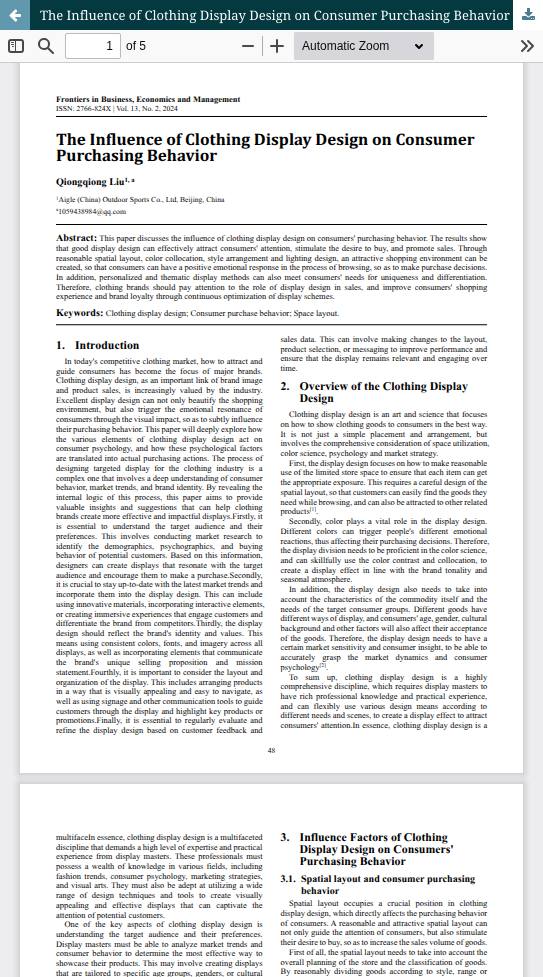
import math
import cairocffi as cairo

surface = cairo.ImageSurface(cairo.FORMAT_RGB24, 543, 977)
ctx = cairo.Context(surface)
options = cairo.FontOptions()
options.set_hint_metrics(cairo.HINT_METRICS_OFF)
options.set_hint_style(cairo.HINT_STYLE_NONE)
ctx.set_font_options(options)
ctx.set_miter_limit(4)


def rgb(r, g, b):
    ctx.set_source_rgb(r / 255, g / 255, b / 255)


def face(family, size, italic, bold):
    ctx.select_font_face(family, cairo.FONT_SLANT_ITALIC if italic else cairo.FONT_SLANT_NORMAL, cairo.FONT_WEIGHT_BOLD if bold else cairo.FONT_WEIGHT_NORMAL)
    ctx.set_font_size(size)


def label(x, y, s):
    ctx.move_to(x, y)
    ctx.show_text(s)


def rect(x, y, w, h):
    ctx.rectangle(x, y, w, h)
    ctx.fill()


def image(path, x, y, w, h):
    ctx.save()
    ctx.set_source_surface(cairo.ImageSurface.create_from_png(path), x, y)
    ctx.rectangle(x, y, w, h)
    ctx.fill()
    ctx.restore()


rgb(255, 255, 255)
ctx.paint()
rgb(3, 57, 63)
rect(30, 0, 483, 30)
rgb(98, 152, 174)
rect(0, 0, 30, 30)
image('image0.png', 9, 9, 12, 13)
face('Noto Serif', 13, 0, 0)
rgb(255, 255, 255)
label(40, 20, 'The Influence of Clothing Display Design on Consumer Purchasing Behavior')
image('image1.png', 522, 8, 13, 12)
image('image2.png', 0, 30, 543, 947)
surface.write_to_png('render.png')
